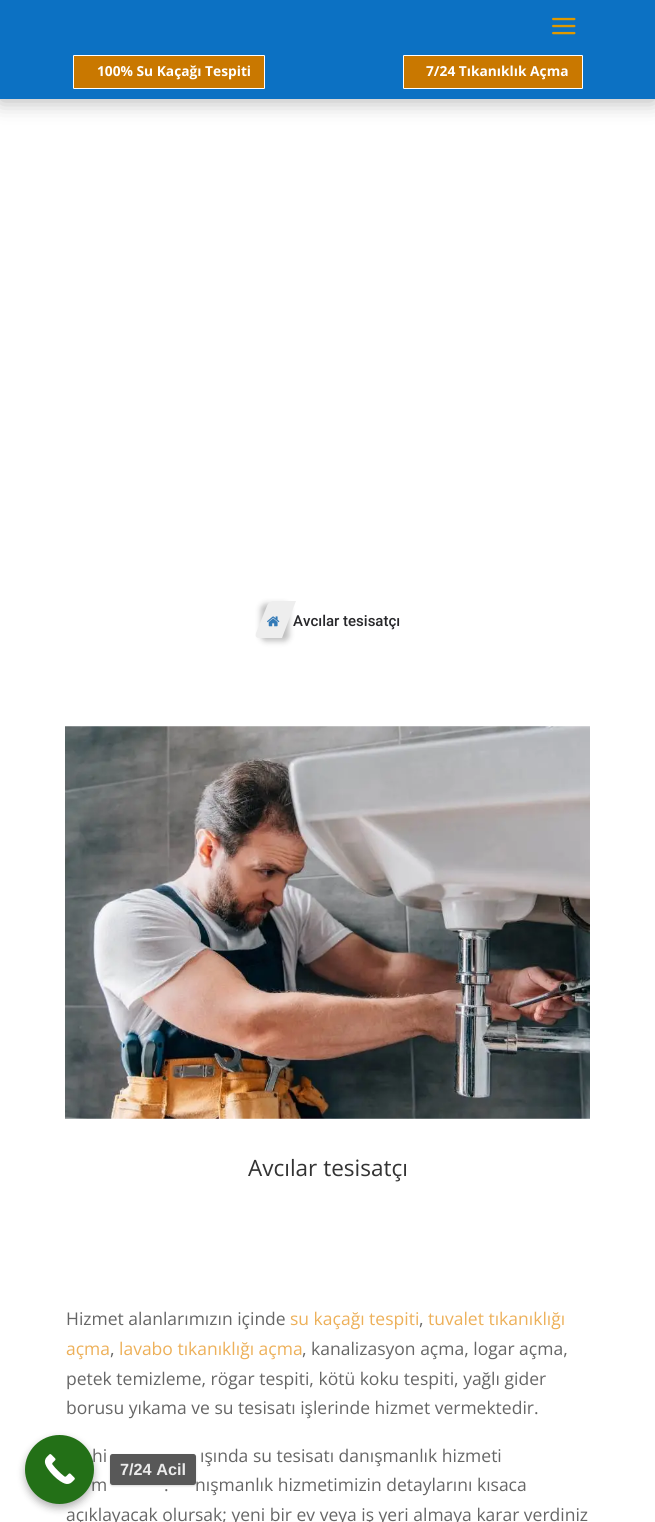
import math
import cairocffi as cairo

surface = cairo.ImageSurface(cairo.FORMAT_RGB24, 655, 1522)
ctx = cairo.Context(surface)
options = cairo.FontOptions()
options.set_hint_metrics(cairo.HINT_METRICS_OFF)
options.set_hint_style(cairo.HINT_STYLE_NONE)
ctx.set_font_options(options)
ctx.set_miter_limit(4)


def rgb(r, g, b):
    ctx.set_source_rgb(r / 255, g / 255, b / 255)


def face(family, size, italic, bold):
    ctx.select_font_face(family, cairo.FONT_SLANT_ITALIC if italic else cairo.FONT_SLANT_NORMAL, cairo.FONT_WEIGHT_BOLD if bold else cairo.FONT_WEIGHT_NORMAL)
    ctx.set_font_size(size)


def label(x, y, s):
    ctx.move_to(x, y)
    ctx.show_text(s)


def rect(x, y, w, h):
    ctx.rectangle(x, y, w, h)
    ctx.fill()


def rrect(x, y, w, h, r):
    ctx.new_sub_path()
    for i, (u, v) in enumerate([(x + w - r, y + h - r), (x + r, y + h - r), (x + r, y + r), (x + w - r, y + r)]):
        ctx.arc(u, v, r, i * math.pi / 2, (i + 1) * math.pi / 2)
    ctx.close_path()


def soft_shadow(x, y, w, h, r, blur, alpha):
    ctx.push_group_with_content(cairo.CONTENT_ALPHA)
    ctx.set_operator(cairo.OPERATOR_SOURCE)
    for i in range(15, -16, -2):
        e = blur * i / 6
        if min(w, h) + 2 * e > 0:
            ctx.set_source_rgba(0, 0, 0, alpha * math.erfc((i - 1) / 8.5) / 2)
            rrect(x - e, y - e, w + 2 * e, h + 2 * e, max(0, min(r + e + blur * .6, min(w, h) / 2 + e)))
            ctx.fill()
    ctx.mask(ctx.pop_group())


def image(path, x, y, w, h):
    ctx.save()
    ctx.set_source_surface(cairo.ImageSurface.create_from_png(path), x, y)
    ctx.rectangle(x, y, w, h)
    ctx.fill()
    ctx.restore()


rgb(255, 255, 255)
ctx.paint()
rgb(0, 0, 0)
soft_shadow(0, 3, 655, 98, 0, 11, 0.3)
rgb(12, 113, 195)
rect(0, 0, 655, 99)
image('image0.png', 552, 17, 24, 18)
rgb(201, 120, 0)
rrect(73.5, 55.5, 191, 33, 0.5)
ctx.fill_preserve()
rgb(255, 255, 255)
ctx.set_line_width(1)
ctx.stroke()
face('Open Sans', 13.75, 0, 1)
label(97, 76, '100% Su Kaçağı Tespiti')
rgb(201, 120, 0)
rrect(403.5, 55.5, 179, 33, 0.5)
ctx.fill_preserve()
rgb(255, 255, 255)
ctx.stroke()
label(426, 76, '7/24 Tıkanıklık Açma')
rgb(0, 0, 0)
soft_shadow(261, 604, 28, 37, 5, 3, 0.26)
face('Roboto Medium', 15, 0, 0)
rgb(39, 39, 42)
label(293, 626, 'Avcılar tesisatçı')
rgb(238, 238, 238)
ctx.new_path()
ctx.move_to(273, 601)
ctx.line_to(296, 601)
ctx.line_to(282, 638)
ctx.line_to(259, 638)
ctx.curve_to(256, 638, 255, 636, 256, 633)
ctx.line_to(267, 606)
ctx.curve_to(268, 603, 271, 601, 273, 601)
ctx.close_path()
ctx.fill()
image('image1.png', 267, 616, 13, 11)
image('image2.png', 65, 726, 525, 393)
face('Open Sans', 22.5, 0, 0)
rgb(51, 51, 51)
label(248, 1176, 'Avcılar tesisatçı')
face('Open Sans', 17.5, 0, 0)
rgb(102, 102, 102)
label(66, 1325, 'Hizmet alanlarımızın içinde')
rgb(237, 176, 89)
label(290, 1325, 'su kaçağı tespiti')
rgb(102, 102, 102)
label(419, 1325, ',')
rgb(237, 176, 89)
label(428, 1325, 'tuvalet tıkanıklığı')
label(66, 1355, 'açma')
rgb(102, 102, 102)
label(110, 1355, ',')
rgb(237, 176, 89)
label(119, 1355, 'lavabo tıkanıklığı açma')
rgb(102, 102, 102)
label(302, 1355, ', kanalizasyon açma, logar açma,')
label(66, 1385, 'petek temizleme, rögar tespiti, kötü koku tespiti, yağlı gider')
label(66, 1414, 'borusu yıkama ve su tesisatı işlerinde hizmet vermektedir.')
label(92, 1462, 'hi')
label(200, 1462, 'ışında su tesisatı danışmanlık hizmeti')
label(91, 1491, 'm')
label(164, 1491, '.')
label(195, 1491, 'nışmanlık hizmetimizin detaylarını kısaca')
label(66, 1521, 'açıklayacak olursak; yeni bir ev veya iş yeri almaya karar verdiniz')
rgb(0, 0, 0)
soft_shadow(25, 1439, 69, 69, 34.5, 4, 0.3)
rgb(35, 112, 23)
ctx.arc(59.5, 1469.5, 34.5, 0, 2 * math.pi)
ctx.fill()
image('image3.png', 44, 1454, 31, 30)
ctx.save()
ctx.set_fill_rule(cairo.FILL_RULE_EVEN_ODD)
ctx.new_path()
ctx.move_to(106, 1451)
ctx.line_to(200, 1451)
ctx.line_to(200, 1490)
ctx.line_to(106, 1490)
ctx.close_path()
ctx.move_to(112.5, 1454)
ctx.line_to(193.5, 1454)
ctx.curve_to(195, 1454, 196, 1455, 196, 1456.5)
ctx.line_to(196, 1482.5)
ctx.curve_to(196, 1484, 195, 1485, 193.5, 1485)
ctx.line_to(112.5, 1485)
ctx.curve_to(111, 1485, 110, 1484, 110, 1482.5)
ctx.line_to(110, 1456.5)
ctx.curve_to(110, 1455, 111, 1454, 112.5, 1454)
ctx.close_path()
ctx.clip()
rgb(0, 0, 0)
soft_shadow(110, 1455, 86, 31, 2.5, 1, 0.15)
ctx.restore()
ctx.set_source_rgba(0.275, 0.275, 0.275, 0.9)
rrect(110, 1454, 86, 31, 2.5)
ctx.fill()
face('Liberation Sans', 16.25, 0, 1)
rgb(236, 236, 236)
label(120, 1475, '7/24 Acil')
surface.write_to_png('render.png')
